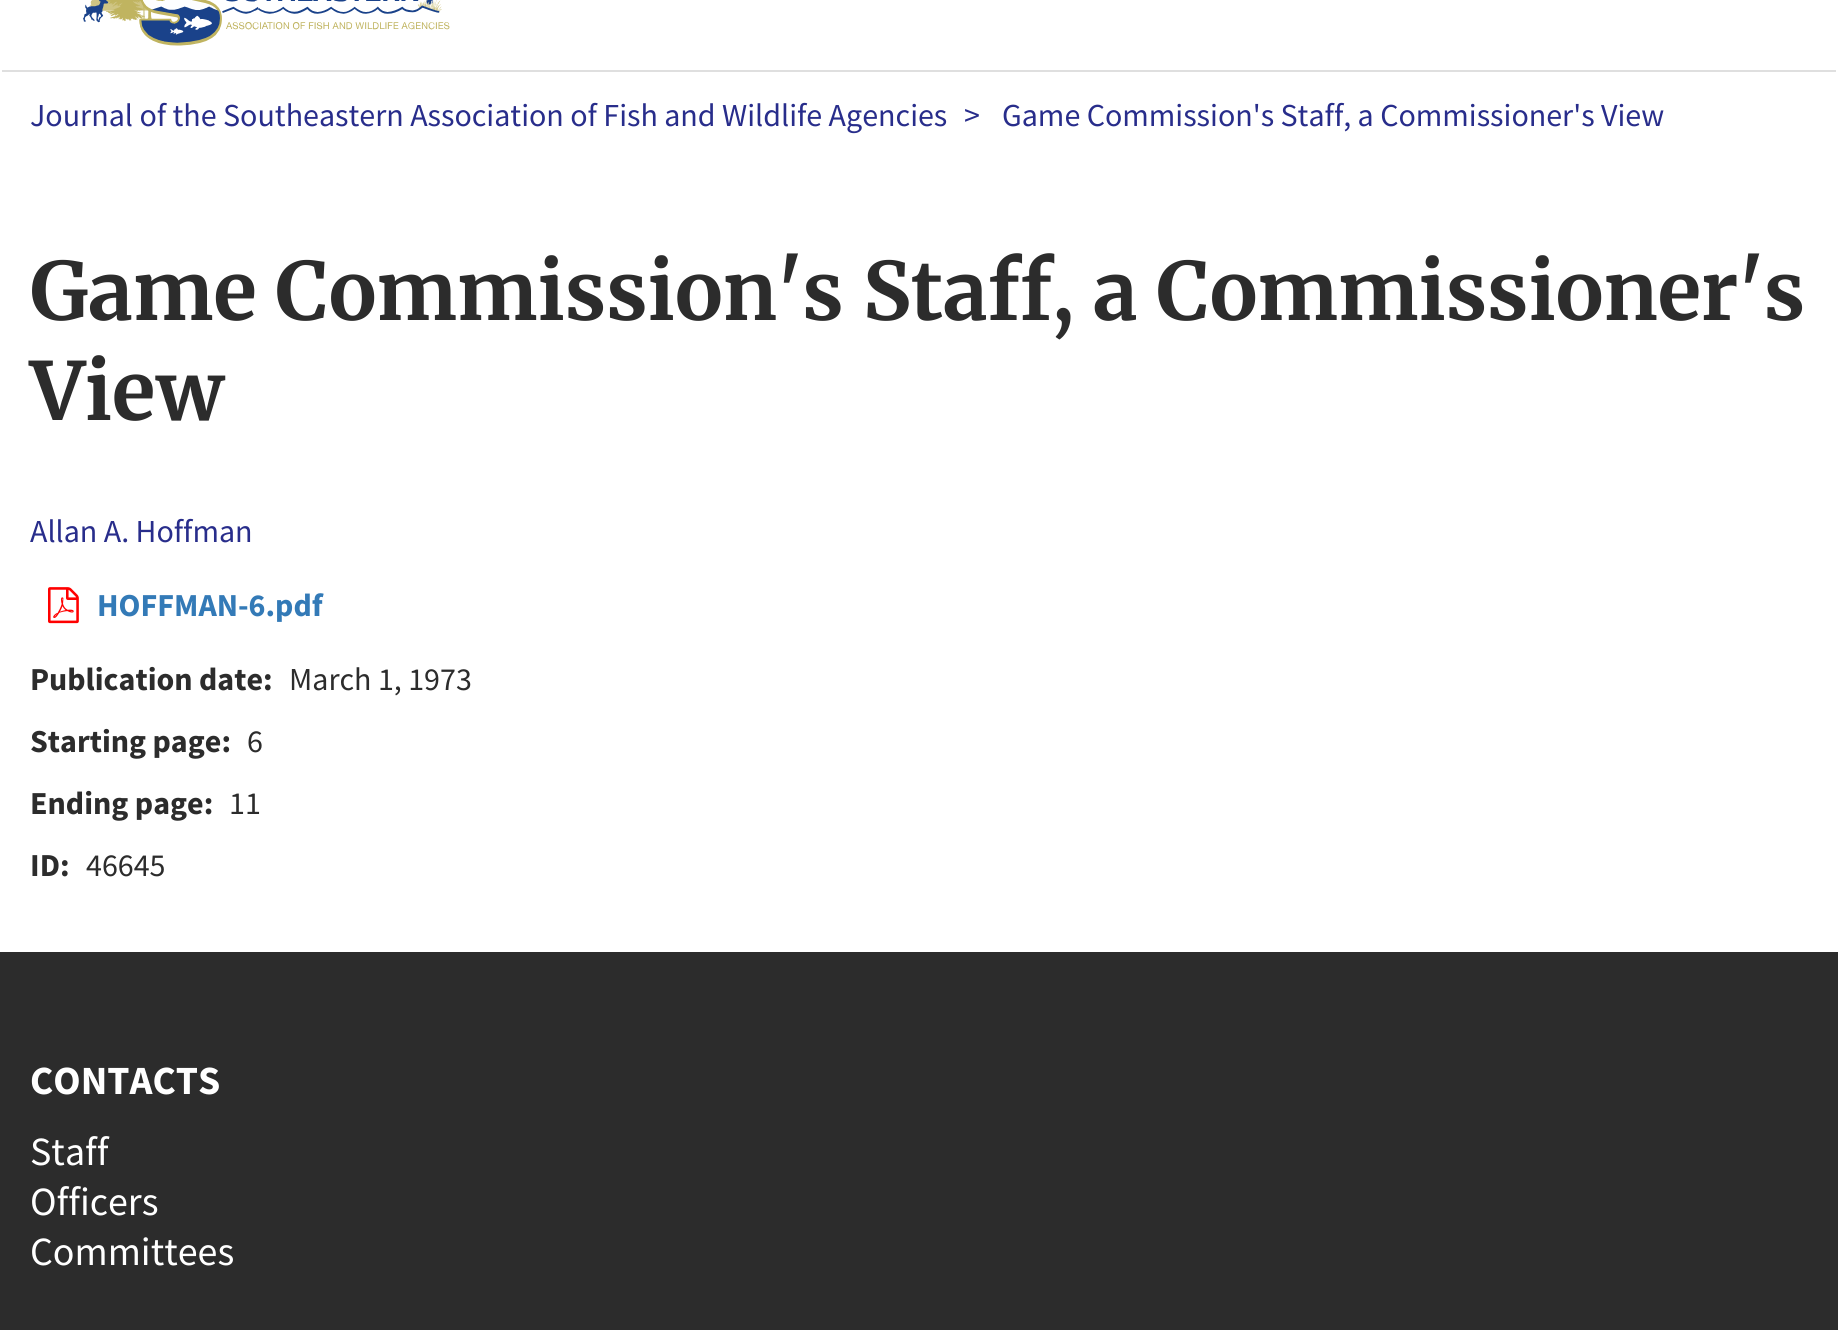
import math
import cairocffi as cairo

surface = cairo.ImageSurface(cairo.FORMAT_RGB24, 1838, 1330)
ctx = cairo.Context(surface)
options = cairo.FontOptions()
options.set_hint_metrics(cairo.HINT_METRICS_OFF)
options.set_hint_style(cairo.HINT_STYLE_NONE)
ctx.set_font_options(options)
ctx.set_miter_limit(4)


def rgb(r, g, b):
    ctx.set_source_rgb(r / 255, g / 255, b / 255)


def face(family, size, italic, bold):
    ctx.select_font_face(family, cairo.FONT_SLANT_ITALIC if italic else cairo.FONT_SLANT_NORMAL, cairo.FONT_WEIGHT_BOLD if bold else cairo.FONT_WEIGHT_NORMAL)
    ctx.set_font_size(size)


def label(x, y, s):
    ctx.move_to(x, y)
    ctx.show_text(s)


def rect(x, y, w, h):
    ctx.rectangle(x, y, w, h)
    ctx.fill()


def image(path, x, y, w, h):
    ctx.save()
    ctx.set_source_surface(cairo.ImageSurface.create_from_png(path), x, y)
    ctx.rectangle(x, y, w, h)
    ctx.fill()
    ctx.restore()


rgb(255, 255, 255)
ctx.paint()
rgb(223, 223, 223)
rect(2, 70, 1834, 2)
image('image0.png', 83, 0, 367, 46)
face('Source Sans Pro', 32, 0, 0)
rgb(40, 45, 139)
label(30, 126, 'Journal of the Southeastern Association of Fish and Wildlife Agencies')
label(964, 126, '>')
label(1002, 126, 'Game Commission\'s Staff, a Commissioner\'s View')
face('Merriweather', 80, 0, 1)
rgb(44, 44, 44)
label(30, 320, 'Game Commission\'s Staff, a Commissioner\'s')
label(30, 420, 'View')
face('Source Sans Pro', 32, 0, 0)
rgb(40, 45, 139)
label(30, 542, 'Allan A. Hoffman')
image('image1.png', 48, 587, 31, 37)
face('Source Sans Pro', 32, 0, 1)
rgb(51, 122, 183)
label(97, 616, 'HOFFMAN-6.pdf')
rgb(44, 44, 44)
label(30, 690, 'Publication date:')
face('Source Sans Pro', 32, 0, 0)
label(289, 690, 'March 1, 1973')
face('Source Sans Pro', 32, 0, 1)
label(30, 752, 'Starting page:')
face('Source Sans Pro', 32, 0, 0)
label(247, 752, '6')
face('Source Sans Pro', 32, 0, 1)
label(30, 814, 'Ending page:')
face('Source Sans Pro', 32, 0, 0)
label(229, 814, '11')
face('Source Sans Pro', 32, 0, 1)
label(30, 876, 'ID:')
face('Source Sans Pro', 32, 0, 0)
label(86, 876, '46645')
rect(0, 952, 1838, 378)
face('Source Sans Pro', 40, 0, 1)
rgb(255, 255, 255)
label(30, 1094, 'CONTACTS')
face('Source Sans Pro', 40, 0, 0)
label(30, 1165, 'Staff')
label(30, 1215, 'Officers')
label(30, 1265, 'Committees')
surface.write_to_png('render.png')
